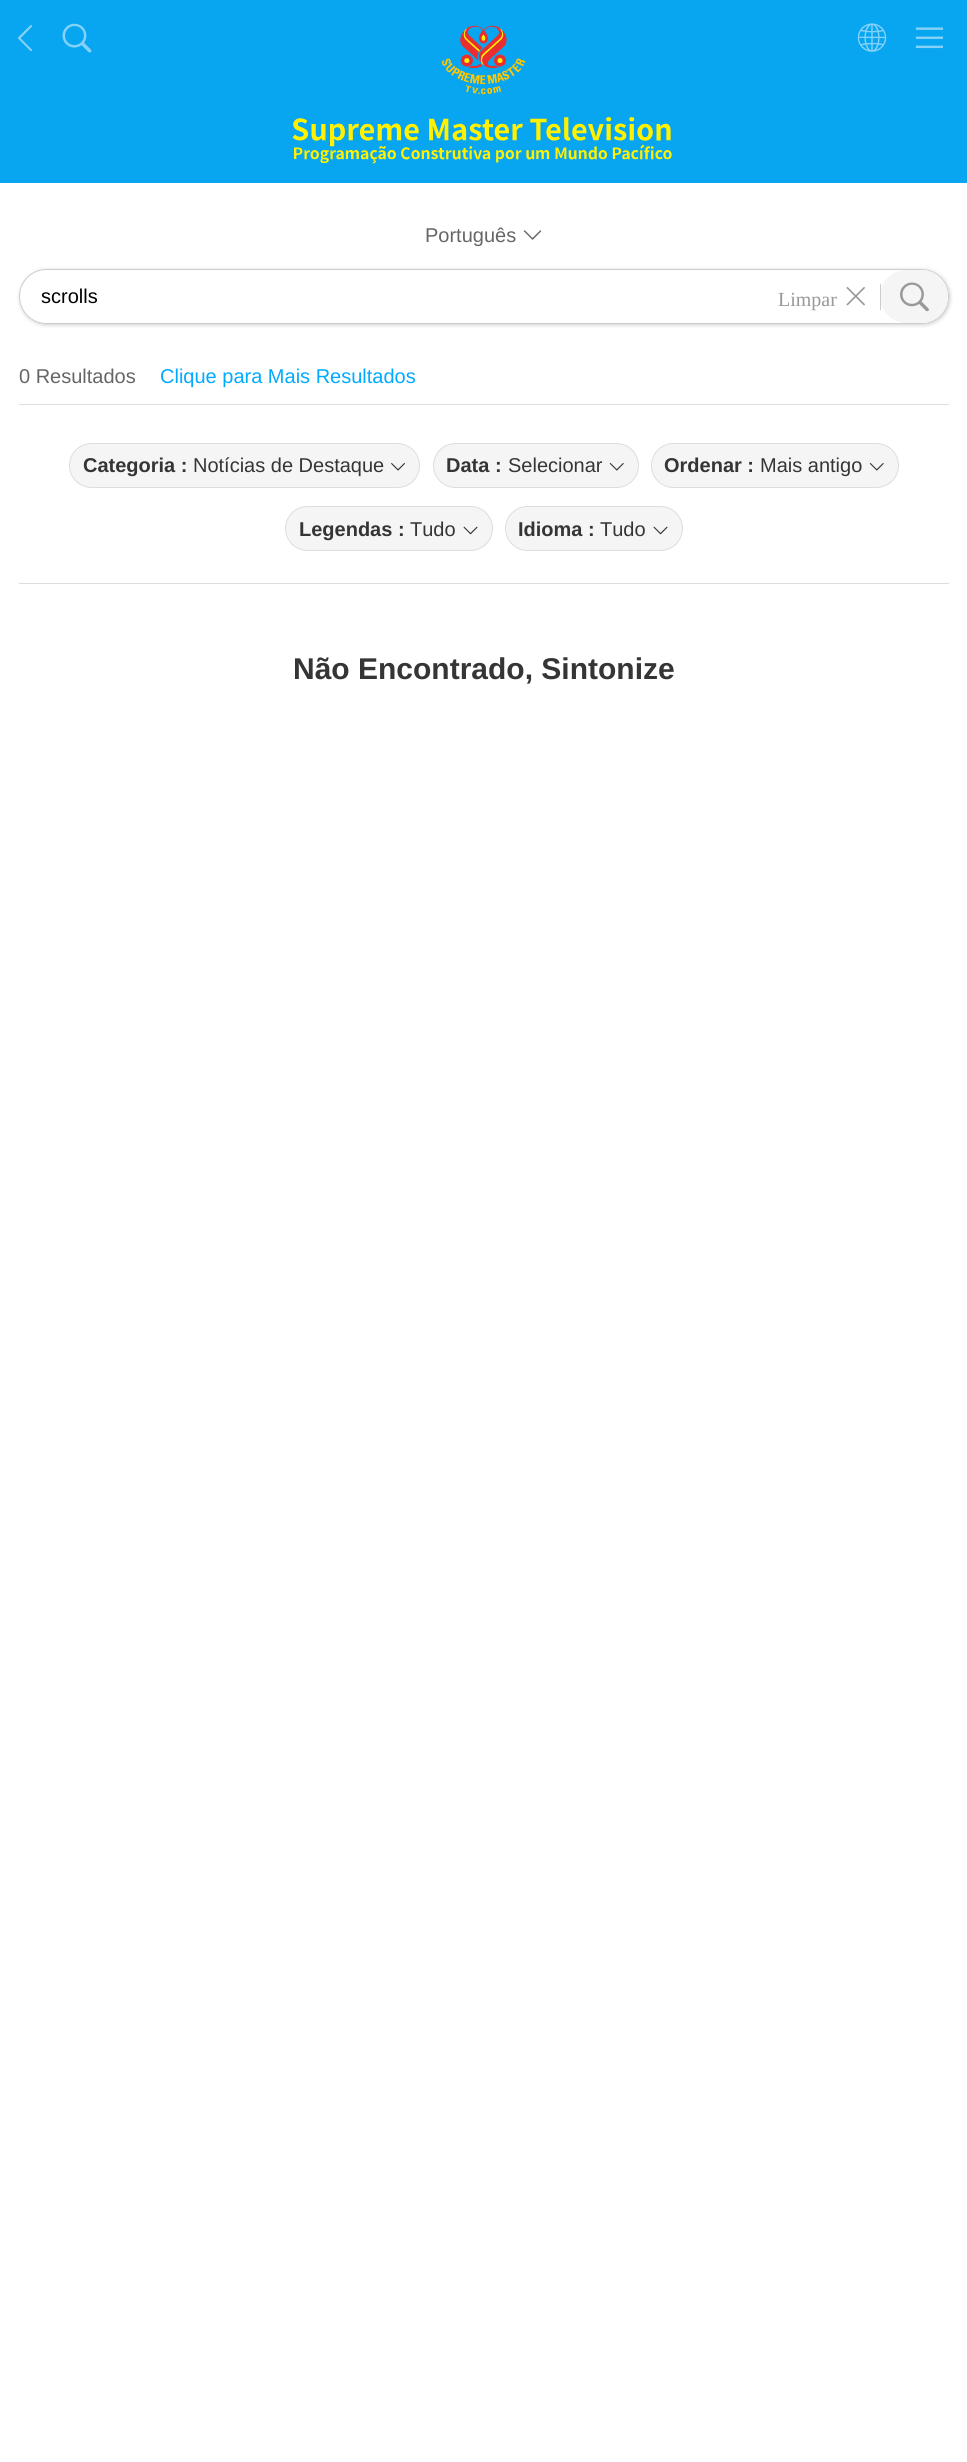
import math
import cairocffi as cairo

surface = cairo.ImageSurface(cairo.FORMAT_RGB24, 967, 2462)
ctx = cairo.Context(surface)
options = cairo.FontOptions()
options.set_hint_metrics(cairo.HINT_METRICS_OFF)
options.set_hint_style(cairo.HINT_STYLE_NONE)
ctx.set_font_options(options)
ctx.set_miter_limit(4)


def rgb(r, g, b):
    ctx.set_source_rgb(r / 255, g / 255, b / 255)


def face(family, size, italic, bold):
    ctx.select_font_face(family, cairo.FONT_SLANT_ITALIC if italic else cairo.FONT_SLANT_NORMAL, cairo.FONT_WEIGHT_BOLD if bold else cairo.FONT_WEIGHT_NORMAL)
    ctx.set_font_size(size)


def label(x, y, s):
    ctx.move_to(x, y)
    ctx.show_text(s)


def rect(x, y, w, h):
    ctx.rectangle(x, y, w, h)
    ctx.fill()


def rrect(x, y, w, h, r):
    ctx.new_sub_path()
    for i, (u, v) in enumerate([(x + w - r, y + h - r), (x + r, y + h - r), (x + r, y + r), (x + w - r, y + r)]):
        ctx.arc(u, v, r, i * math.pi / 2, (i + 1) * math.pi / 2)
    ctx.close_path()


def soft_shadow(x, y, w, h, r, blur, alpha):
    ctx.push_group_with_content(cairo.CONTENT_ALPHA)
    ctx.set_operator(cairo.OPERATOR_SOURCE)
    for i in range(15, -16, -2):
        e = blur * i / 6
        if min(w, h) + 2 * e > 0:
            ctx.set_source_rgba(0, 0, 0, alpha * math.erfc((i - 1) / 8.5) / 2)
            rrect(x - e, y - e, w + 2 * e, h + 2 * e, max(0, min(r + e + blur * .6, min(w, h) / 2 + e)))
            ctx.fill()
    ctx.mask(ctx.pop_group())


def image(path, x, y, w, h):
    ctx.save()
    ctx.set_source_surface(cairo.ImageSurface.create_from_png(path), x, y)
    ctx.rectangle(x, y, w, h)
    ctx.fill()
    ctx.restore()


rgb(255, 255, 255)
ctx.paint()
rgb(8, 165, 240)
rect(0, 0, 967, 183)
image('image0.png', 18, 25, 14, 27)
image('image1.png', 62, 23, 30, 30)
image('image2.png', 441, 25, 85, 70)
image('image3.png', 857, 23, 30, 29)
image('image4.png', 915, 27, 28, 22)
image('image5.png', 292, 117, 380, 47)
face('Liberation Sans', 20, 0, 0)
rgb(102, 102, 102)
label(425, 242, 'Português')
image('image6.png', 523, 230, 19, 10)
ctx.save()
ctx.set_fill_rule(cairo.FILL_RULE_EVEN_ODD)
ctx.new_path()
ctx.move_to(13, 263)
ctx.line_to(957, 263)
ctx.line_to(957, 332)
ctx.line_to(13, 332)
ctx.close_path()
ctx.move_to(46.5, 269)
ctx.line_to(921.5, 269)
ctx.curve_to(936.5, 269, 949, 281.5, 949, 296.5)
ctx.curve_to(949, 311.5, 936.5, 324, 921.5, 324)
ctx.line_to(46.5, 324)
ctx.curve_to(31.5, 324, 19, 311.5, 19, 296.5)
ctx.curve_to(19, 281.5, 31.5, 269, 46.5, 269)
ctx.close_path()
ctx.clip()
rgb(0, 0, 0)
soft_shadow(20, 270, 930, 55, 27.5, 2, 0.2)
ctx.restore()
rrect(19.5, 269.5, 929, 54, 27)
rgb(204, 204, 204)
ctx.set_line_width(1)
ctx.stroke()
rgb(0, 0, 0)
label(41, 303, 'scrolls')
face('Liberation Serif', 20, 0, 0)
rgb(153, 153, 153)
label(778, 306, 'Limpar')
image('image7.png', 846, 287, 19, 19)
rgb(245, 245, 245)
rrect(880, 270, 68, 53, 26.5)
ctx.fill()
rgb(204, 204, 204)
rect(880, 284, 1, 26)
image('image8.png', 900, 282, 29, 30)
rgb(221, 221, 221)
rect(19, 404, 930, 1)
face('Liberation Sans', 20, 0, 0)
rgb(102, 102, 102)
label(19, 383, '0 Resultados')
rgb(0, 170, 255)
label(160, 383, 'Clique para Mais Resultados')
rgb(221, 221, 221)
rect(19, 583, 930, 1)
rgb(245, 245, 245)
rrect(69.5, 443.5, 350, 44, 22)
ctx.fill_preserve()
rgb(221, 221, 221)
ctx.stroke()
face('Liberation Sans', 20, 0, 1)
rgb(53, 53, 53)
label(83, 472, 'Categoria :')
face('Liberation Sans', 20, 0, 0)
label(193, 472, 'Notícias de Destaque')
image('image9.png', 391, 463, 14, 8)
rgb(245, 245, 245)
rrect(433.5, 443.5, 205, 44, 22)
ctx.fill_preserve()
rgb(221, 221, 221)
ctx.stroke()
face('Liberation Sans', 20, 0, 1)
rgb(53, 53, 53)
label(446, 472, 'Data :')
face('Liberation Sans', 20, 0, 0)
label(508, 472, 'Selecionar')
image('image10.png', 609, 463, 15, 8)
rgb(245, 245, 245)
rrect(651.5, 443.5, 247, 44, 22)
ctx.fill_preserve()
rgb(221, 221, 221)
ctx.stroke()
face('Liberation Sans', 20, 0, 1)
rgb(53, 53, 53)
label(664, 472, 'Ordenar :')
face('Liberation Sans', 20, 0, 0)
label(760, 472, 'Mais antigo')
image('image10.png', 869, 463, 15, 8)
rgb(245, 245, 245)
rrect(285.5, 506.5, 207, 44, 22)
ctx.fill_preserve()
rgb(221, 221, 221)
ctx.stroke()
face('Liberation Sans', 20, 0, 1)
rgb(53, 53, 53)
label(299, 536, 'Legendas :')
face('Liberation Sans', 20, 0, 0)
label(410, 536, 'Tudo')
image('image11.png', 463, 526, 15, 9)
rgb(245, 245, 245)
rrect(505.5, 506.5, 177, 44, 22)
ctx.fill_preserve()
rgb(221, 221, 221)
ctx.stroke()
face('Liberation Sans', 20, 0, 1)
rgb(53, 53, 53)
label(518, 536, 'Idioma :')
face('Liberation Sans', 20, 0, 0)
label(600, 536, 'Tudo')
image('image11.png', 653, 526, 15, 9)
face('Liberation Sans', 30, 0, 1)
label(293, 679, 'Não Encontrado, Sintonize')
surface.write_to_png('render.png')
